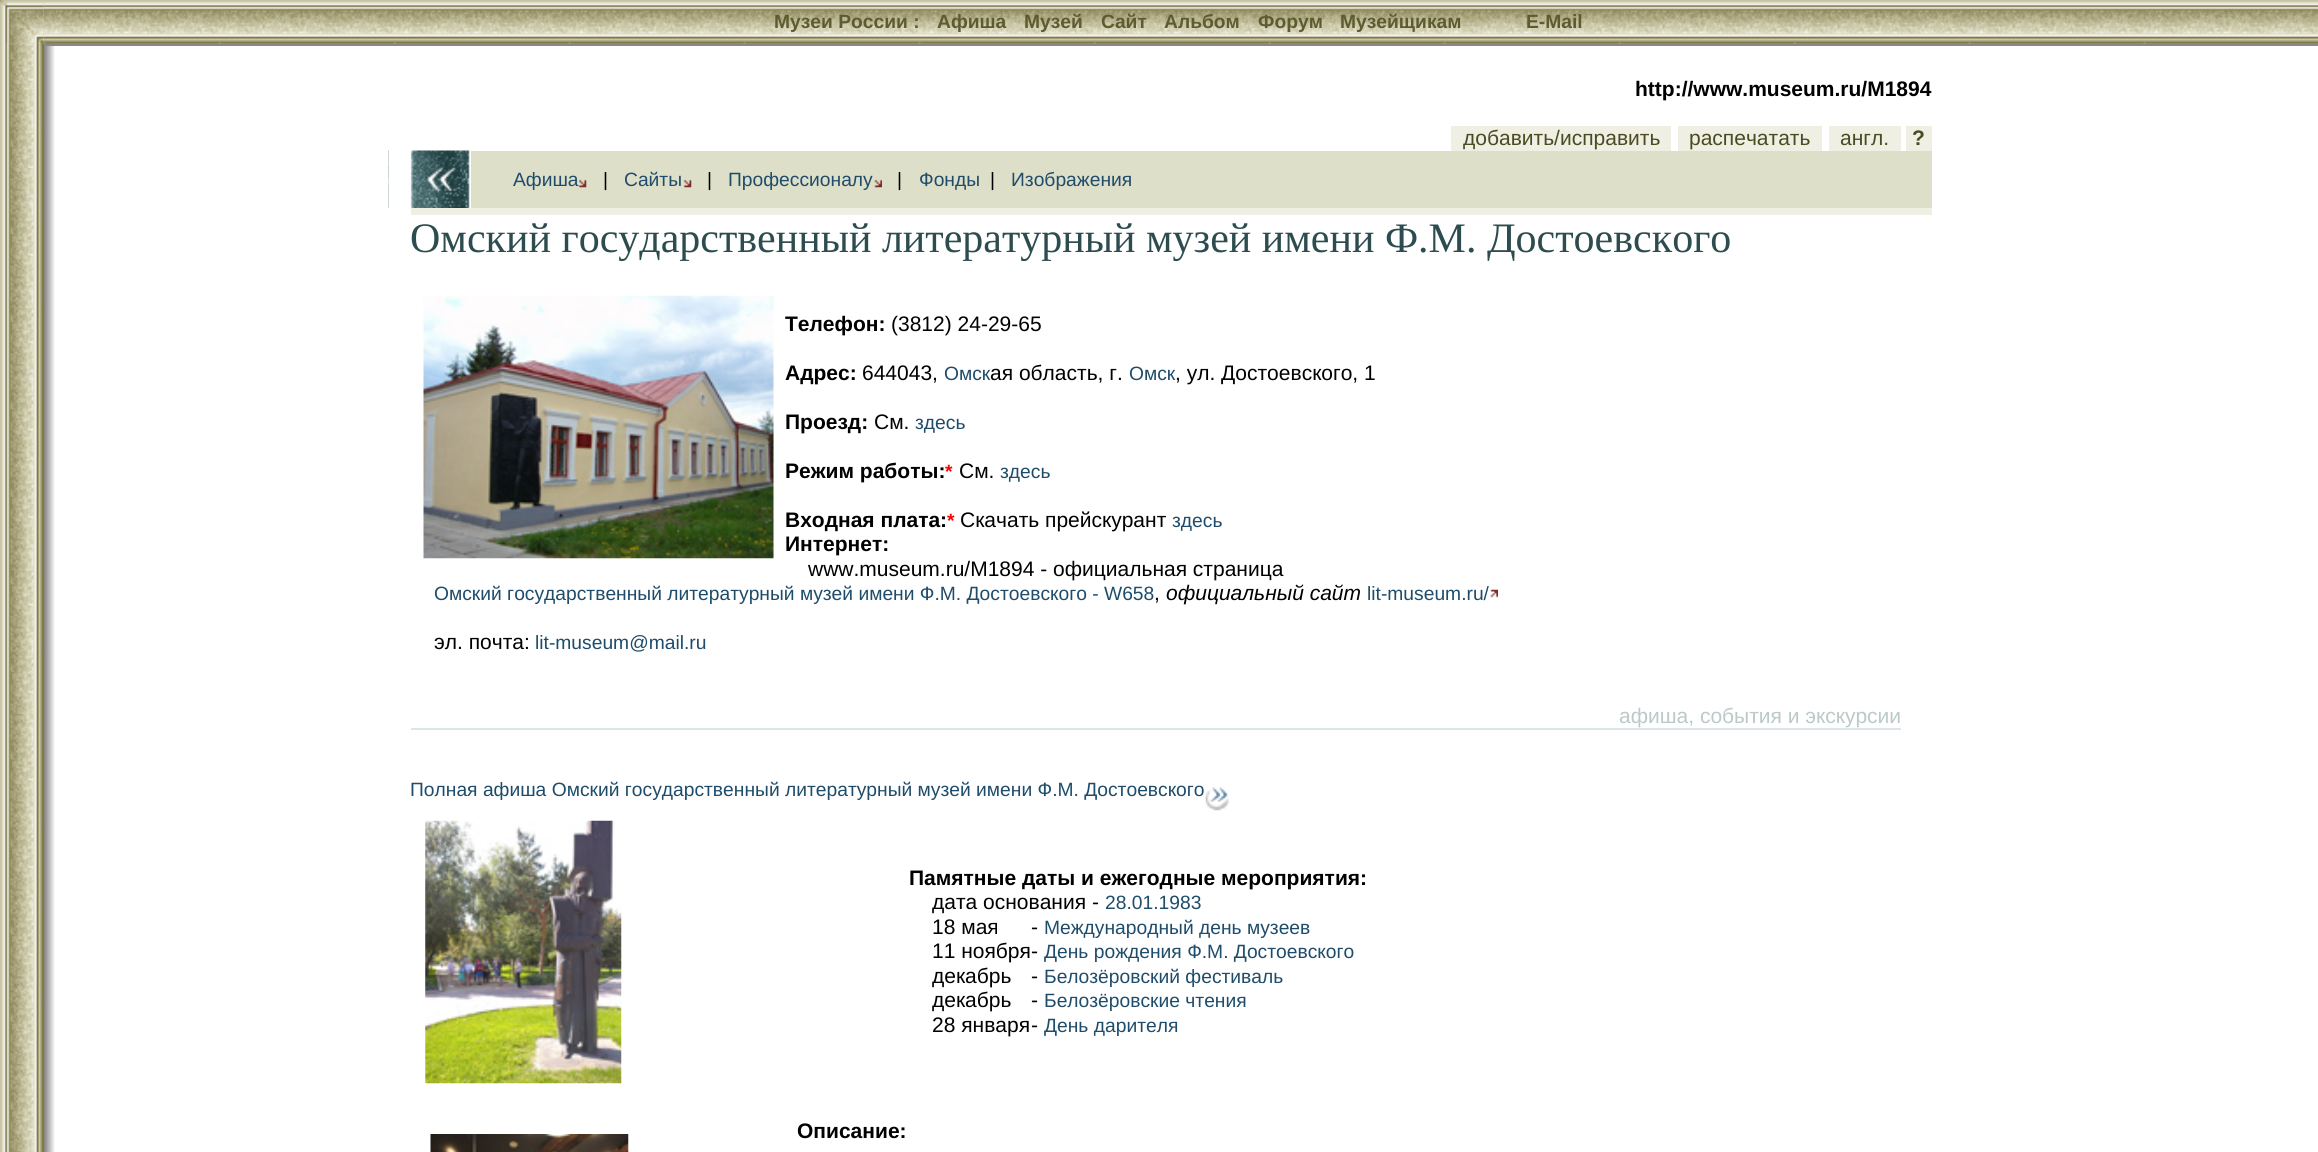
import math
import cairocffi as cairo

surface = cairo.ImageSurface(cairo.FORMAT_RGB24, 2318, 1152)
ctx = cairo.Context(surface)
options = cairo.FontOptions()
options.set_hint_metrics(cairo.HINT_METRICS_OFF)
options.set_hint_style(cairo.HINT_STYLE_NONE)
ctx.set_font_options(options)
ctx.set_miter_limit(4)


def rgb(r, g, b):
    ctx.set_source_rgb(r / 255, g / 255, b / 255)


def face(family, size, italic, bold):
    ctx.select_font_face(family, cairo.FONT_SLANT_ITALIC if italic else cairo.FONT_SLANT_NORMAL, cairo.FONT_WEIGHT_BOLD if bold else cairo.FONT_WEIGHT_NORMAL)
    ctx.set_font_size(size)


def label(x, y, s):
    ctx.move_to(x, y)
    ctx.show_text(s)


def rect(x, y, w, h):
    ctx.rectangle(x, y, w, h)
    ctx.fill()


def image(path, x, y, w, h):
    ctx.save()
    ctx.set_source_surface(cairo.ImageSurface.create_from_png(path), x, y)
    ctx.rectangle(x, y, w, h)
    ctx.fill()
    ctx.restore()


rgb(255, 255, 255)
ctx.paint()
image('image0.png', 0, 0, 55, 1152)
image('image1.png', 0, 0, 44, 44)
image('image2.png', 43, 0, 2275, 44)
face('Liberation Sans', 19.25, 0, 1)
rgb(95, 91, 49)
label(774, 28, 'Музеи России :')
label(937, 28, 'Афиша')
label(1024, 28, 'Музей')
label(1101, 28, 'Сайт')
label(1164, 28, 'Альбом')
label(1258, 28, 'Форум')
label(1340, 28, 'Музейщикам')
label(1526, 28, 'E-Mail')
rgb(136, 136, 136)
rect(44, 44, 2274, 2)
face('Liberation Sans', 21, 0, 1)
rgb(0, 0, 0)
label(1635, 96, 'http://www.museum.ru/M1894')
rgb(239, 239, 228)
rect(1451, 126, 220, 25)
face('Liberation Sans', 21, 0, 0)
rgb(73, 75, 32)
label(1463, 145, 'добавить/исправить')
rgb(239, 239, 228)
rect(1678, 126, 144, 25)
rgb(73, 75, 32)
label(1689, 145, 'распечатать')
rgb(239, 239, 228)
rect(1829, 126, 72, 25)
rgb(73, 75, 32)
label(1840, 145, 'англ.')
rgb(239, 239, 228)
rect(1906, 126, 26, 25)
face('Liberation Sans', 21, 0, 1)
rgb(73, 75, 32)
label(1912, 145, '?')
image('image3.png', 388, 150, 82, 59)
rgb(222, 223, 201)
rect(471, 151, 1461, 57)
face('Liberation Sans', 19.25, 0, 0)
rgb(30, 76, 106)
label(513, 186, 'Афиша')
image('image4.png', 578, 179, 9, 9)
rgb(0, 0, 0)
label(603, 186, '|')
rgb(30, 76, 106)
label(624, 186, 'Сайты')
image('image5.png', 683, 179, 9, 9)
rgb(0, 0, 0)
label(707, 186, '|')
rgb(30, 76, 106)
label(728, 186, 'Профессионалу')
image('image6.png', 874, 179, 8, 9)
rgb(0, 0, 0)
label(897, 186, '|')
rgb(30, 76, 106)
label(919, 186, 'Фонды')
rgb(0, 0, 0)
label(990, 186, '|')
rgb(30, 76, 106)
label(1011, 186, 'Изображения')
rgb(239, 239, 228)
rect(411, 208, 1521, 7)
face('Liberation Serif', 42, 0, 0)
rgb(45, 76, 79)
label(410, 252, 'Омский государственный литературный музей имени Ф.М. Достоевского')
image('image7.png', 423, 295, 351, 264)
face('Liberation Sans', 21, 0, 1)
rgb(0, 0, 0)
label(785, 331, 'Телефон:')
face('Liberation Sans', 21, 0, 0)
label(891, 331, '(3812) 24-29-65')
face('Liberation Sans', 21, 0, 1)
label(785, 380, 'Адрес:')
face('Liberation Sans', 21, 0, 0)
label(862, 380, '644043,')
face('Liberation Sans', 19.25, 0, 0)
rgb(30, 76, 106)
label(944, 380, 'Омск')
face('Liberation Sans', 21, 0, 0)
rgb(0, 0, 0)
label(990, 380, 'ая область, г.')
face('Liberation Sans', 19.25, 0, 0)
rgb(30, 76, 106)
label(1129, 380, 'Омск')
face('Liberation Sans', 21, 0, 0)
rgb(0, 0, 0)
label(1175, 380, ', ул. Достоевского, 1')
face('Liberation Sans', 21, 0, 1)
label(785, 429, 'Проезд:')
face('Liberation Sans', 21, 0, 0)
label(874, 429, 'См.')
face('Liberation Sans', 19.25, 0, 0)
rgb(30, 76, 106)
label(915, 429, 'здесь')
face('Liberation Sans', 21, 0, 1)
rgb(0, 0, 0)
label(785, 478, 'Режим работы:')
face('Liberation Sans', 19.25, 0, 1)
rgb(255, 0, 0)
label(945, 478, '*')
face('Liberation Sans', 21, 0, 0)
rgb(0, 0, 0)
label(959, 478, 'См.')
face('Liberation Sans', 19.25, 0, 0)
rgb(30, 76, 106)
label(1000, 478, 'здесь')
face('Liberation Sans', 21, 0, 1)
rgb(0, 0, 0)
label(785, 527, 'Входная плата:')
face('Liberation Sans', 19.25, 0, 1)
rgb(255, 0, 0)
label(947, 527, '*')
face('Liberation Sans', 21, 0, 0)
rgb(0, 0, 0)
label(960, 527, 'Скачать прейскурант')
face('Liberation Sans', 19.25, 0, 0)
rgb(30, 76, 106)
label(1172, 527, 'здесь')
face('Liberation Sans', 21, 0, 1)
rgb(0, 0, 0)
label(785, 551, 'Интернет:')
face('Liberation Sans', 21, 0, 0)
label(808, 576, 'www.museum.ru/M1894 - официальная страница')
face('Liberation Sans', 19.25, 0, 0)
rgb(30, 76, 106)
label(434, 600, 'Омский государственный литературный музей имени Ф.М. Достоевского - W658')
face('Liberation Sans', 21, 1, 0)
rgb(0, 0, 0)
label(1166, 600, 'официальный сайт')
face('Liberation Sans', 19.25, 0, 0)
rgb(30, 76, 106)
label(1367, 600, 'lit-museum.ru/')
image('image8.png', 1490, 589, 8, 9)
face('Liberation Sans', 21, 0, 0)
rgb(0, 0, 0)
label(1154, 600, ',')
label(434, 649, 'эл. почта:')
face('Liberation Sans', 19.25, 0, 0)
rgb(30, 76, 106)
label(535, 649, 'lit-museum@mail.ru')
face('Liberation Sans', 21, 0, 0)
rgb(187, 201, 201)
label(1619, 723, 'афиша, события и экскурсии')
rgb(219, 230, 233)
rect(411, 728, 1490, 2)
face('Liberation Sans', 19.25, 0, 0)
rgb(30, 76, 106)
label(410, 796, 'Полная афиша Омский государственный литературный музей имени Ф.М. Достоевского')
image('image9.png', 1205, 787, 24, 24)
image('image10.png', 425, 820, 197, 264)
face('Liberation Sans', 21, 0, 1)
rgb(0, 0, 0)
label(909, 885, 'Памятные даты и ежегодные мероприятия:')
face('Liberation Sans', 21, 0, 0)
label(932, 909, 'дата основания -')
face('Liberation Sans', 19.25, 0, 0)
rgb(30, 76, 106)
label(1105, 909, '28.01.1983')
face('Liberation Sans', 21, 0, 0)
rgb(0, 0, 0)
label(932, 934, '18 мая')
label(1031, 934, '-')
face('Liberation Sans', 19.25, 0, 0)
rgb(30, 76, 106)
label(1044, 934, 'Международный день музеев')
face('Liberation Sans', 21, 0, 0)
rgb(0, 0, 0)
label(932, 958, '11 ноября-')
face('Liberation Sans', 19.25, 0, 0)
rgb(30, 76, 106)
label(1044, 958, 'День рождения Ф.М. Достоевского')
face('Liberation Sans', 21, 0, 0)
rgb(0, 0, 0)
label(932, 983, 'декабрь')
label(1031, 983, '-')
face('Liberation Sans', 19.25, 0, 0)
rgb(30, 76, 106)
label(1044, 983, 'Белозёровский фестиваль')
face('Liberation Sans', 21, 0, 0)
rgb(0, 0, 0)
label(932, 1007, 'декабрь')
label(1031, 1007, '-')
face('Liberation Sans', 19.25, 0, 0)
rgb(30, 76, 106)
label(1044, 1007, 'Белозёровские чтения')
face('Liberation Sans', 21, 0, 0)
rgb(0, 0, 0)
label(932, 1032, '28 января')
label(1031, 1032, '-')
face('Liberation Sans', 19.25, 0, 0)
rgb(30, 76, 106)
label(1044, 1032, 'День дарителя')
face('Liberation Sans', 21, 0, 1)
rgb(0, 0, 0)
label(797, 1138, 'Описание:')
image('image11.png', 430, 1134, 199, 18)
surface.write_to_png('render.png')
